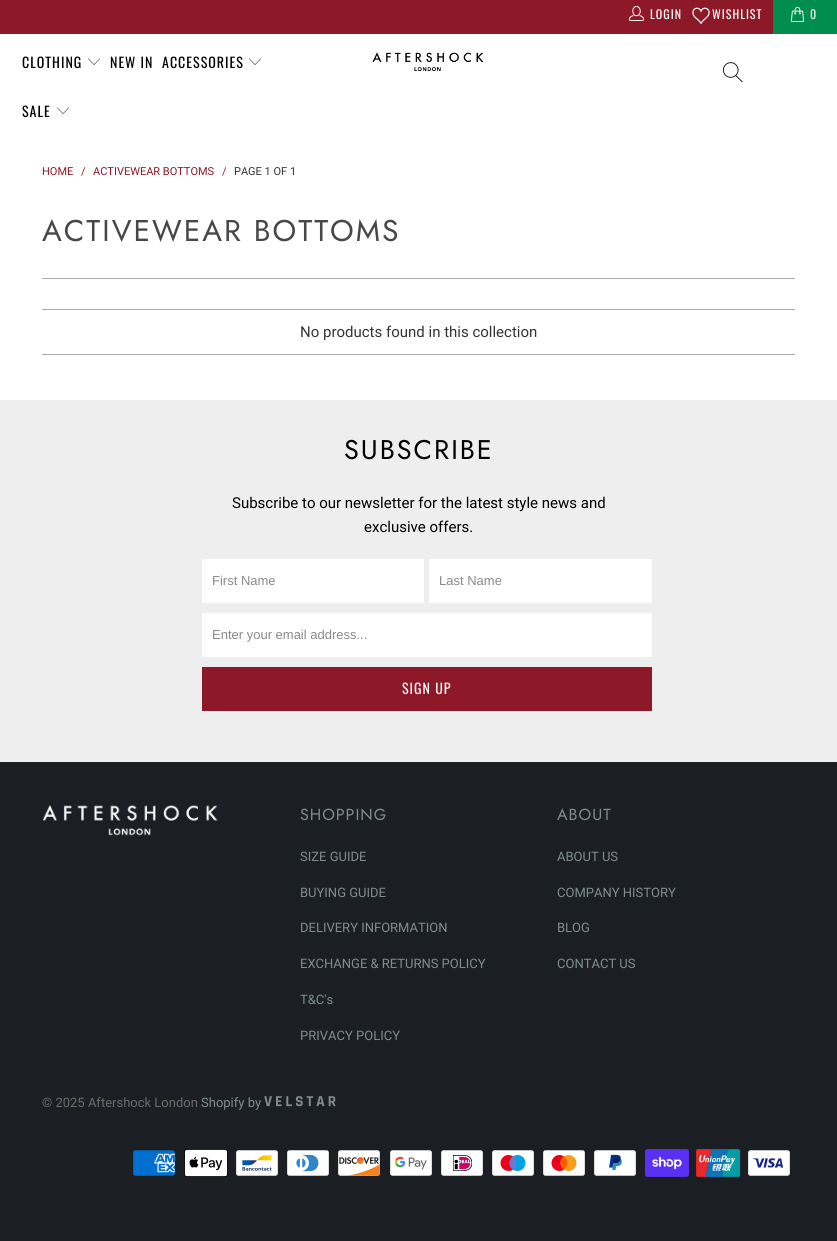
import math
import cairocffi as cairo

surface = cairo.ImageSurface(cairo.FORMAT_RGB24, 837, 1241)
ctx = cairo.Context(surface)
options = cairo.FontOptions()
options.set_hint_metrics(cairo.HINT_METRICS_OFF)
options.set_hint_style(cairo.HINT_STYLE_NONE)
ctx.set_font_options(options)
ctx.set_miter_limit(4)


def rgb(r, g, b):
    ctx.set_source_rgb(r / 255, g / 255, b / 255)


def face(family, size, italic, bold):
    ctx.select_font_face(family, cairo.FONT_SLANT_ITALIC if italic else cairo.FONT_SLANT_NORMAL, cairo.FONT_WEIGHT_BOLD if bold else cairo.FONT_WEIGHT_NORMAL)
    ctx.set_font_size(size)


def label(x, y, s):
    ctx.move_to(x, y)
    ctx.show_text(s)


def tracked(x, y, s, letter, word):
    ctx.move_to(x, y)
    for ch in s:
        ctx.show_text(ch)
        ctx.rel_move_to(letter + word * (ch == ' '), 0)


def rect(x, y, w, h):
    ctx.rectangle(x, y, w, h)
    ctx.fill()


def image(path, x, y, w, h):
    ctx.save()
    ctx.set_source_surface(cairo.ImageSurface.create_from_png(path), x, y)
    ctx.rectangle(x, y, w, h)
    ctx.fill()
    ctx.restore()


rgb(255, 255, 255)
ctx.paint()
rgb(141, 24, 40)
rect(0, 0, 773, 34)
image('image0.png', 629, 5, 15, 16)
face('Oswald', 12, 0, 0)
rgb(255, 255, 255)
tracked(650, 19, 'LOGIN', 1, 0)
image('image1.png', 692, 7, 18, 18)
tracked(712, 19, 'WISHLIST', 1, 0)
rgb(0, 141, 77)
rect(773, 0, 64, 34)
image('image2.png', 790, 7, 15, 15)
rgb(255, 255, 255)
tracked(810, 19, '0', 1, 0)
face('Oswald', 14, 0, 0)
rgb(0, 0, 0)
tracked(22, 68, 'CLOTHING', 1, 0)
image('image3.png', 88, 58, 12, 7)
tracked(110, 68, 'NEW IN', 1, 0)
tracked(162, 68, 'ACCESSORIES', 1, 0)
image('image3.png', 249, 58, 12, 7)
tracked(22, 117, 'SALE', 1, 0)
image('image3.png', 57, 107, 12, 7)
image('image4.png', 372, 52, 112, 20)
image('image5.png', 723, 62, 20, 21)
face('Roboto', 11, 0, 0)
rgb(141, 24, 40)
label(42, 175, 'HOME')
label(81, 175, '/')
label(93, 175, 'ACTIVEWEAR BOTTOMS')
label(222, 175, '/')
rgb(51, 51, 51)
label(234, 175, 'PAGE 1 OF 1')
face('Jost', 30, 0, 0)
rgb(71, 71, 71)
tracked(42, 241, 'ACTIVEWEAR BOTTOMS', 2, 0)
rgb(170, 170, 170)
rect(42, 278, 753, 1)
rect(42, 309, 753, 1)
rect(42, 354, 753, 1)
face('Roboto', 15, 0, 0)
rgb(51, 51, 51)
label(300, 337, 'No products found in this collection')
rgb(238, 238, 238)
rect(0, 400, 837, 362)
face('Jost', 27, 0, 0)
rgb(0, 0, 0)
tracked(344, 459, 'SUBSCRIBE', 2, 0)
face('Roboto', 15, 0, 0)
label(232, 508, 'Subscribe to our newsletter for the latest style news and')
label(364, 532, 'exclusive offers.')
rgb(255, 255, 255)
rect(202, 559, 222, 44)
face('Liberation Sans', 13, 0, 0)
rgb(136, 136, 136)
label(212, 585, 'First Name')
rgb(255, 255, 255)
rect(429, 559, 223, 44)
rgb(136, 136, 136)
label(439, 585, 'Last Name')
rgb(255, 255, 255)
rect(202, 613, 450, 44)
rgb(136, 136, 136)
label(212, 639, 'Enter your email address...')
rgb(141, 24, 40)
rect(202, 667, 450, 44)
face('Oswald', 14, 0, 0)
rgb(255, 255, 255)
tracked(402, 694, 'SIGN UP', 1, 0)
rgb(27, 31, 35)
rect(0, 762, 837, 479)
image('image6.png', 43, 805, 175, 31)
face('Jost', 16, 0, 0)
rgb(127, 140, 141)
tracked(300, 820, 'SHOPPING', 1, 0)
face('Roboto', 13, 0, 0)
label(300, 861, 'SIZE GUIDE')
label(300, 897, 'BUYING GUIDE')
label(300, 932, 'DELIVERY INFORMATION')
label(300, 968, 'EXCHANGE & RETURNS POLICY')
label(300, 1004, 'T&C\'s')
label(300, 1040, 'PRIVACY POLICY')
face('Jost', 16, 0, 0)
tracked(557, 820, 'ABOUT', 1, 0)
face('Roboto', 13, 0, 0)
label(557, 861, 'ABOUT US')
label(557, 897, 'COMPANY HISTORY')
label(557, 932, 'BLOG')
label(557, 968, 'CONTACT US')
rgb(107, 107, 107)
label(42, 1107, '© 2025 Aftershock London')
rgb(127, 140, 141)
label(201, 1107, 'Shopify by')
image('image7.png', 264, 1096, 72, 11)
image('image8.png', 133, 1150, 42, 26)
image('image9.png', 184, 1149, 44, 28)
image('image10.png', 236, 1150, 42, 26)
image('image11.png', 287, 1150, 42, 26)
image('image12.png', 338, 1150, 42, 26)
image('image13.png', 390, 1150, 42, 26)
image('image14.png', 441, 1150, 42, 26)
image('image15.png', 492, 1150, 42, 26)
image('image16.png', 543, 1150, 42, 26)
image('image17.png', 594, 1150, 42, 26)
image('image18.png', 645, 1149, 44, 28)
image('image19.png', 696, 1149, 44, 28)
image('image20.png', 748, 1150, 42, 26)
surface.write_to_png('render.png')
